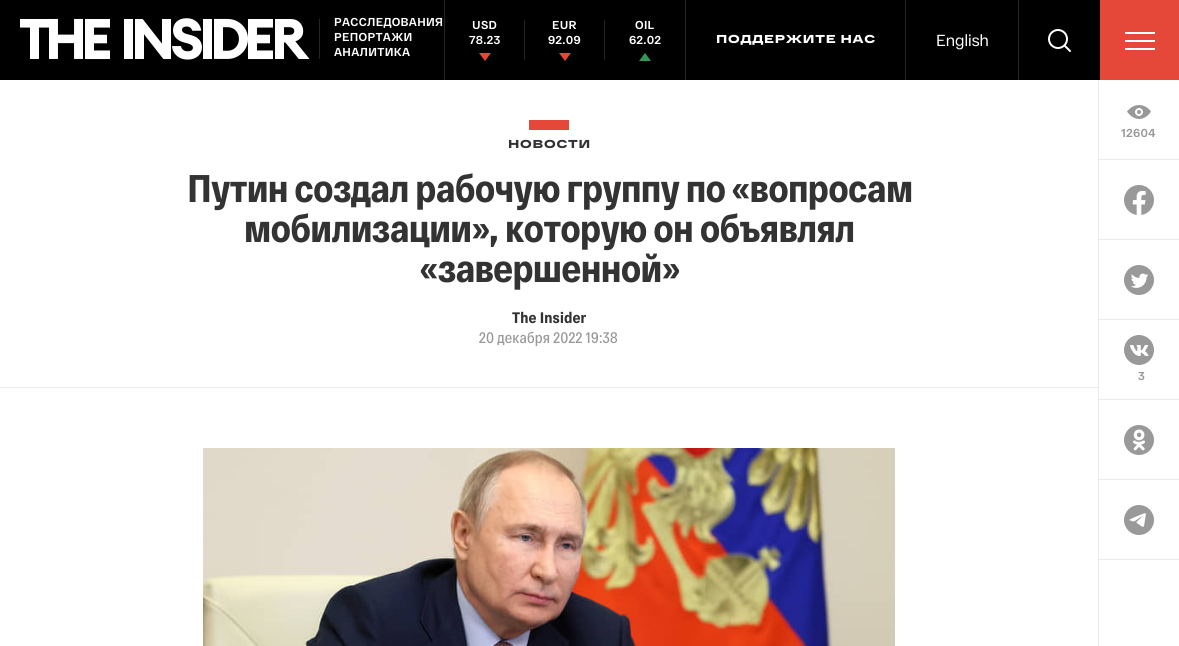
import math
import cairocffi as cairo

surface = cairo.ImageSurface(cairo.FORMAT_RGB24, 1179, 646)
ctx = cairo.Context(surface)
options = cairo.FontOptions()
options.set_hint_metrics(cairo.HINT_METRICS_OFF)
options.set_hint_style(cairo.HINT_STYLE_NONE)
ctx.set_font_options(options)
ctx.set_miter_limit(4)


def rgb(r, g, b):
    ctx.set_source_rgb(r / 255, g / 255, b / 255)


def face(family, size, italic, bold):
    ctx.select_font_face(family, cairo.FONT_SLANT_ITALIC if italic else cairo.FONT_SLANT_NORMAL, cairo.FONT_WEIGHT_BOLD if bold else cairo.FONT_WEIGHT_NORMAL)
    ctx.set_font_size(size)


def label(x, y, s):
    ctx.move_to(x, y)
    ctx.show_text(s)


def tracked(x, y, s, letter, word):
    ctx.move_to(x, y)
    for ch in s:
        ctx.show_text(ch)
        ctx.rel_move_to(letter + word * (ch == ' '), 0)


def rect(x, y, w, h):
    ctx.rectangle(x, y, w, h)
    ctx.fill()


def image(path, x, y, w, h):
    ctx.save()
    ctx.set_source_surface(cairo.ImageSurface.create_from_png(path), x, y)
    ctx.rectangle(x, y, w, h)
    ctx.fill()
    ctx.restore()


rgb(255, 255, 255)
ctx.paint()
rgb(0, 0, 0)
rect(0, 0, 1100, 80)
image('image0.png', 20, 18, 290, 42)
rgb(38, 38, 38)
rect(319, 19, 1, 40)
face('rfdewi', 11.5, 0, 0)
rgb(255, 255, 255)
tracked(334, 26, 'РАССЛЕДОВАНИЯ', 0.3, 0)
tracked(334, 41, 'РЕПОРТАЖИ', 0.3, 0)
tracked(334, 56, 'АНАЛИТИКА', 0.3, 0)
rgb(38, 38, 38)
rect(444, 0, 1, 80)
rgb(255, 255, 255)
tracked(472, 29, 'USD', 0.3, 0)
rgb(38, 38, 38)
rect(524, 20, 1, 40)
rgb(255, 255, 255)
tracked(469, 44, '78.23', 0.3, 0)
rgb(229, 72, 57)
ctx.new_path()
ctx.move_to(479, 53)
ctx.line_to(491, 53)
ctx.line_to(485, 61)
ctx.close_path()
ctx.fill()
rgb(255, 255, 255)
tracked(552, 29, 'EUR', 0.3, 0)
rgb(38, 38, 38)
rect(604, 20, 1, 40)
rgb(255, 255, 255)
tracked(548, 44, '92.09', 0.3, 0)
rgb(229, 72, 57)
ctx.new_path()
ctx.move_to(559, 53)
ctx.line_to(571, 53)
ctx.line_to(565, 61)
ctx.close_path()
ctx.fill()
rgb(255, 255, 255)
tracked(635, 29, 'OIL', 0.3, 0)
tracked(629, 44, '62.02', 0.3, 0)
rgb(49, 152, 92)
ctx.new_path()
ctx.move_to(651, 61)
ctx.line_to(639, 61)
ctx.line_to(645, 53)
ctx.close_path()
ctx.fill()
rgb(38, 38, 38)
rect(685, 0, 1, 80)
face('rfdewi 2', 11.5, 0, 0)
rgb(255, 255, 255)
tracked(716, 43, 'ПОДДЕРЖИТЕ НАС', 0.75, 0)
rgb(38, 38, 38)
rect(905, 0, 1, 80)
face('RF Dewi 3', 16, 0, 0)
rgb(255, 255, 255)
label(936, 46, 'English')
rgb(38, 38, 38)
rect(1018, 0, 1, 80)
ctx.new_path()
ctx.arc(1058, 39, 9, 0, 2 * math.pi)
rgb(255, 255, 255)
ctx.stroke()
ctx.new_path()
ctx.move_to(1065, 46)
ctx.line_to(1070, 51)
ctx.set_line_cap(cairo.LINE_CAP_ROUND)
ctx.stroke()
rgb(229, 72, 57)
rect(1100, 0, 79, 80)
rgb(255, 255, 255)
rect(1125, 32, 30, 2)
rect(1125, 40, 30, 2)
rect(1125, 48, 30, 2)
rgb(235, 235, 235)
rect(1098, 80, 1, 566)
rect(0, 387, 1099, 1)
rgb(229, 72, 57)
rect(529, 120, 40, 10)
face('rfdewi 2', 11.5, 0, 0)
rgb(51, 51, 51)
tracked(508, 148, 'НОВОСТИ', 0.75, 0)
face('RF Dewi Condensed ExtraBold', 38.5, 0, 0)
tracked(187, 202, 'Путин создал рабочую группу по «вопросам', -0.75, 0)
tracked(244, 242, 'мобилизации», которую он объявлял', -0.75, 0)
tracked(420, 282, '«завершенной»', -0.75, 0)
face('RF Dewi Condensed ExtraBold', 15.25, 0, 0)
tracked(512, 323, 'The Insider', 0.15, 0)
face('RF Dewi Condensed SemiBold', 15.25, 0, 0)
rgb(153, 153, 153)
tracked(479, 343, '20 декабря 2022 19:38', 0.15, 0)
rgb(235, 235, 235)
rect(1099, 159, 80, 1)
image('image1.png', 1127, 105, 24, 14)
face('rfdewi', 11.5, 0, 0)
rgb(153, 153, 153)
tracked(1121, 137, '12604', 0.3, 0)
rgb(235, 235, 235)
rect(1099, 239, 80, 1)
image('image2.png', 1124, 185, 30, 30)
rect(1099, 319, 80, 1)
image('image3.png', 1124, 265, 30, 30)
rect(1099, 399, 80, 1)
image('image4.png', 1124, 335, 30, 30)
rgb(153, 153, 153)
tracked(1138, 380, '3', 0.3, 0)
rgb(235, 235, 235)
rect(1099, 479, 80, 1)
image('image5.png', 1124, 425, 30, 30)
rect(1099, 559, 80, 1)
image('image6.png', 1124, 505, 30, 30)
image('image7.png', 203, 448, 692, 198)
surface.write_to_png('render.png')
